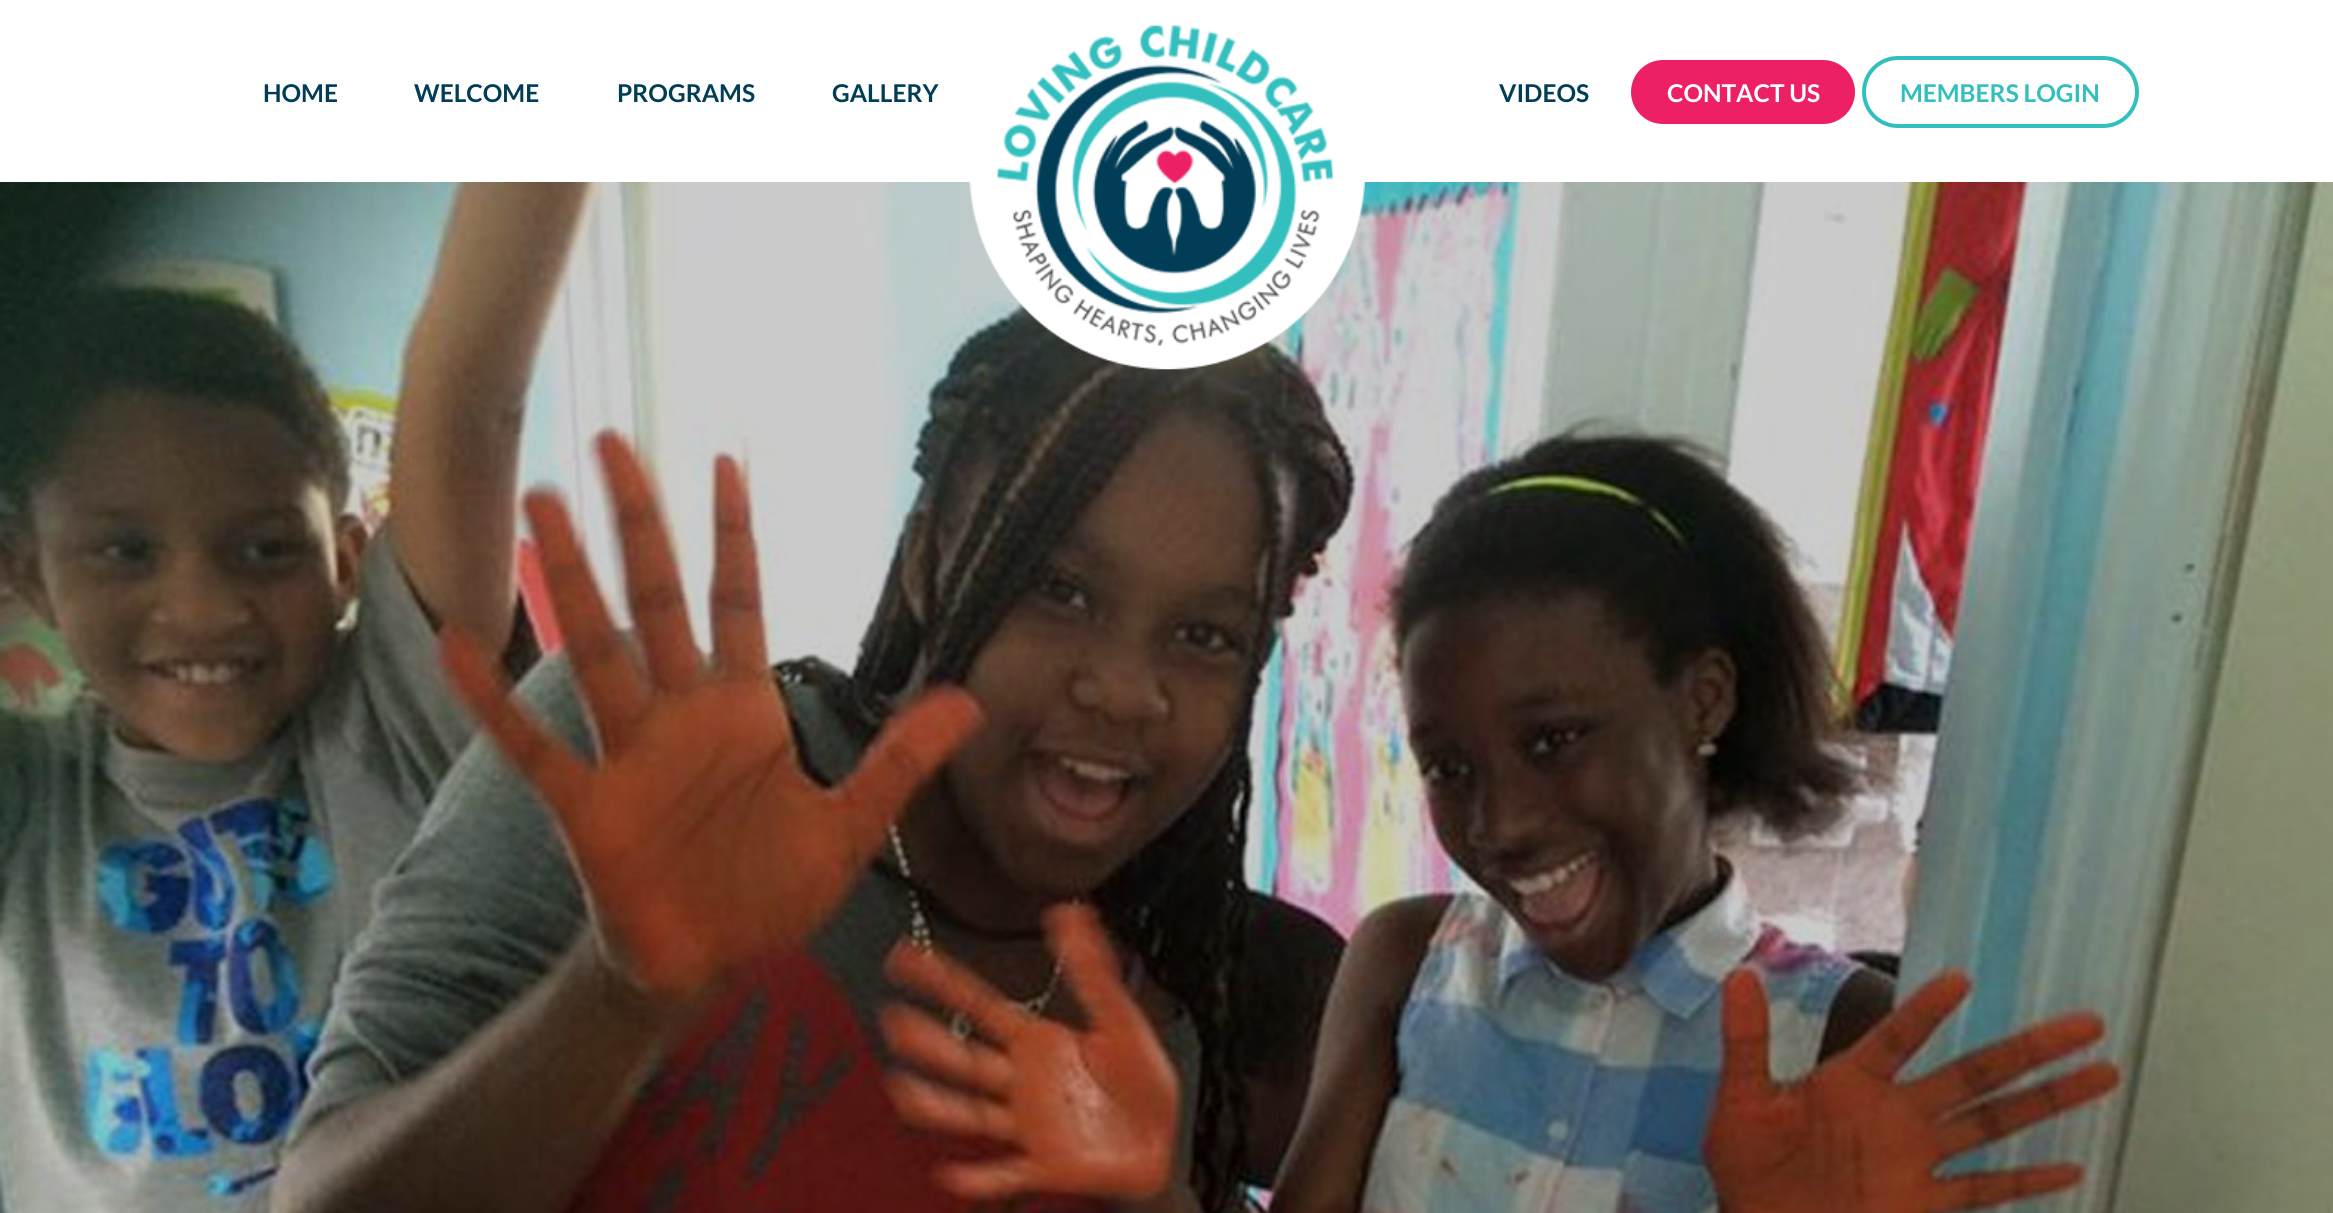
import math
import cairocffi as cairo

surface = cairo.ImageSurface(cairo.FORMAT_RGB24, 2333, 1213)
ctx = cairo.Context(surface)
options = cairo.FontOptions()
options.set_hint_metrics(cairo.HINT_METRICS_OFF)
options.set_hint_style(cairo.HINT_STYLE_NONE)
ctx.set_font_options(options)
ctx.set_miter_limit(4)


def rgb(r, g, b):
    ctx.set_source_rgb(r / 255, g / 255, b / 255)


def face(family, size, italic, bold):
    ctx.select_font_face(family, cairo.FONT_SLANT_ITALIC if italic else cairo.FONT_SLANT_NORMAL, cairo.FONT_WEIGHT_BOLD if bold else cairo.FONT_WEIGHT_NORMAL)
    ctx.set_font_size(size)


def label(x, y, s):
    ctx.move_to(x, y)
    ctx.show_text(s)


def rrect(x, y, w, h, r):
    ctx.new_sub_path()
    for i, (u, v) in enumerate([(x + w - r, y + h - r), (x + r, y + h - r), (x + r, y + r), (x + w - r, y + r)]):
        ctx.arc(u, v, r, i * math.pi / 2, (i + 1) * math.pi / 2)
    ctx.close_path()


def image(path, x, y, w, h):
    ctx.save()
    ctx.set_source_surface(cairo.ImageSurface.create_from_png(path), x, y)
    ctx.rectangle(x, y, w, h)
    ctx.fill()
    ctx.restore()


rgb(255, 255, 255)
ctx.paint()
image('image1.png', 0, 182, 2333, 1031)
image('image0.png', 969, 25, 396, 345)
face('Lato', 24.5, 0, 1)
rgb(1, 61, 86)
label(263, 102, 'HOME')
label(414, 102, 'WELCOME')
label(617, 102, 'PROGRAMS')
label(832, 102, 'GALLERY')
label(1499, 102, 'VIDEOS')
rgb(237, 31, 101)
rrect(1631, 60, 224, 64, 32)
ctx.fill()
rgb(255, 255, 255)
label(1667, 102, 'CONTACT US')
rrect(1864, 58, 273, 68, 34)
rgb(50, 191, 190)
ctx.set_line_width(4)
ctx.stroke()
label(1900, 102, 'MEMBERS LOGIN')
surface.write_to_png('render.png')
